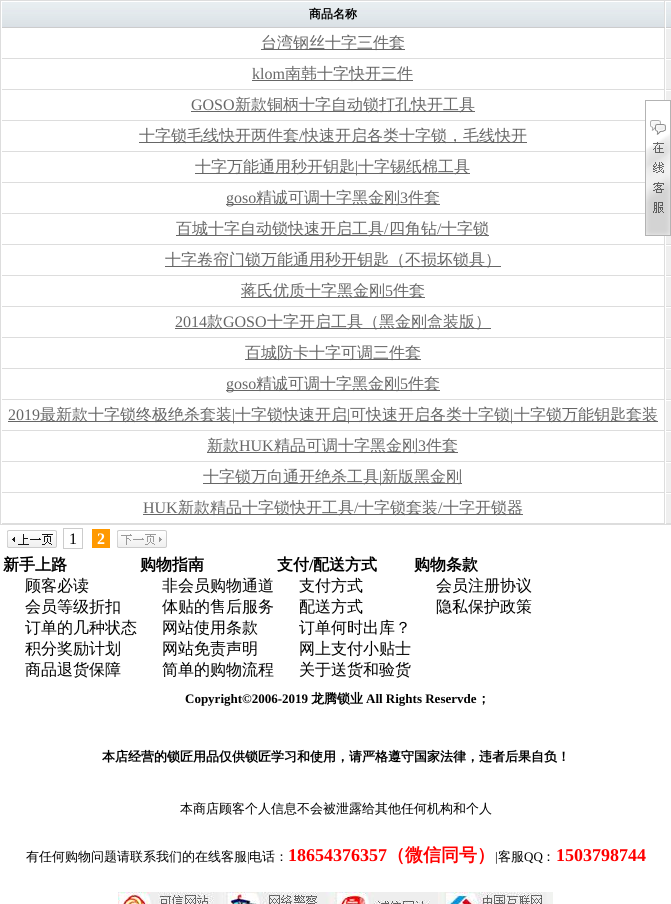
import math
import cairocffi as cairo

surface = cairo.ImageSurface(cairo.FORMAT_RGB24, 671, 904)
ctx = cairo.Context(surface)
options = cairo.FontOptions()
options.set_hint_metrics(cairo.HINT_METRICS_OFF)
options.set_hint_style(cairo.HINT_STYLE_NONE)
ctx.set_font_options(options)
ctx.set_miter_limit(4)


def rgb(r, g, b):
    ctx.set_source_rgb(r / 255, g / 255, b / 255)


def face(family, size, italic, bold):
    ctx.select_font_face(family, cairo.FONT_SLANT_ITALIC if italic else cairo.FONT_SLANT_NORMAL, cairo.FONT_WEIGHT_BOLD if bold else cairo.FONT_WEIGHT_NORMAL)
    ctx.set_font_size(size)


def label(x, y, s):
    ctx.move_to(x, y)
    ctx.show_text(s)


def rect(x, y, w, h):
    ctx.rectangle(x, y, w, h)
    ctx.fill()


def image(path, x, y, w, h):
    ctx.save()
    ctx.set_source_surface(cairo.ImageSurface.create_from_png(path), x, y)
    ctx.rectangle(x, y, w, h)
    ctx.fill()
    ctx.restore()


rgb(255, 255, 255)
ctx.paint()
ctx.rectangle(0.5, 0.5, 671, 524)
rgb(221, 221, 221)
ctx.set_line_width(1)
ctx.stroke()
image('image0.png', 2, 2, 662, 25)
rect(664, 1, 1, 99)
rgb(204, 204, 204)
rect(1, 27, 670, 1)
rgb(255, 255, 255)
rect(1, 27, 1, 1)
face('WenQuanYi Zen Hei', 12, 0, 1)
rgb(0, 0, 0)
label(309, 18, '商品名称')
image('image1.png', 666, 2, 5, 25)
rgb(255, 255, 255)
rect(665, 27, 1, 1)
rgb(239, 239, 239)
rect(666, 29, 5, 495)
rgb(221, 221, 221)
rect(1, 58, 670, 1)
rgb(255, 255, 255)
rect(1, 58, 1, 1)
rgb(102, 102, 102)
rect(261, 49, 144, 1)
face('WenQuanYi Zen Hei Medium', 16, 0, 0)
label(261, 48, '台湾钢丝十字三件套')
rgb(255, 255, 255)
rect(665, 58, 1, 1)
rgb(221, 221, 221)
rect(1, 89, 670, 1)
rgb(255, 255, 255)
rect(1, 89, 1, 1)
face('Liberation Serif', 16, 0, 0)
rgb(102, 102, 102)
label(252, 79, 'klom')
rect(252, 80, 161, 1)
face('WenQuanYi Zen Hei Medium', 16, 0, 0)
label(285, 79, '南韩十字快开三件')
rgb(255, 255, 255)
rect(665, 59, 6, 1)
rect(665, 89, 1, 1)
rect(665, 90, 6, 1)
rgb(221, 221, 221)
rect(1, 120, 644, 1)
rgb(255, 255, 255)
rect(1, 120, 1, 1)
face('Liberation Serif', 16, 0, 0)
rgb(102, 102, 102)
label(191, 110, 'GOSO')
rect(191, 111, 284, 1)
face('WenQuanYi Zen Hei Medium', 16, 0, 0)
label(235, 110, '新款铜柄十字自动锁打孔快开工具')
rgb(221, 221, 221)
rect(1, 151, 644, 1)
rgb(255, 255, 255)
rect(1, 151, 1, 1)
rgb(102, 102, 102)
rect(139, 142, 388, 1)
label(139, 141, '十字锁毛线快开两件套')
face('Liberation Serif', 16, 0, 0)
label(299, 141, '/')
face('WenQuanYi Zen Hei Medium', 16, 0, 0)
label(303, 141, '快速开启各类十字锁，毛线快开')
rgb(221, 221, 221)
rect(1, 182, 644, 1)
rgb(255, 255, 255)
rect(1, 182, 1, 1)
rgb(102, 102, 102)
rect(195, 173, 275, 1)
label(195, 172, '十字万能通用秒开钥匙')
face('Liberation Serif', 16, 0, 0)
label(355, 172, '|')
face('WenQuanYi Zen Hei Medium', 16, 0, 0)
label(358, 172, '十字锡纸棉工具')
rgb(221, 221, 221)
rect(1, 213, 644, 1)
rgb(255, 255, 255)
rect(1, 213, 1, 1)
rgb(102, 102, 102)
rect(226, 204, 214, 1)
face('Liberation Serif', 16, 0, 0)
label(226, 203, 'goso')
face('WenQuanYi Zen Hei Medium', 16, 0, 0)
label(256, 203, '精诚可调十字黑金刚')
face('Liberation Serif', 16, 0, 0)
label(400, 203, '3')
face('WenQuanYi Zen Hei Medium', 16, 0, 0)
label(408, 203, '件套')
rgb(221, 221, 221)
rect(664, 236, 1, 288)
rect(1, 244, 670, 1)
rgb(255, 255, 255)
rect(1, 244, 1, 1)
rgb(102, 102, 102)
rect(176, 235, 313, 1)
label(176, 234, '百城十字自动锁快速开启工具')
face('Liberation Serif', 16, 0, 0)
label(384, 234, '/')
face('WenQuanYi Zen Hei Medium', 16, 0, 0)
label(389, 234, '四角钻')
face('Liberation Serif', 16, 0, 0)
label(437, 234, '/')
face('WenQuanYi Zen Hei Medium', 16, 0, 0)
label(441, 234, '十字锁')
rgb(255, 255, 255)
rect(665, 236, 1, 9)
rgb(221, 221, 221)
rect(1, 275, 670, 1)
rgb(255, 255, 255)
rect(1, 275, 1, 1)
rgb(102, 102, 102)
rect(165, 266, 336, 1)
label(165, 265, '十字卷帘门锁万能通用秒开钥匙（不损坏锁具）')
rgb(255, 255, 255)
rect(665, 245, 6, 1)
rect(665, 275, 1, 1)
rgb(221, 221, 221)
rect(1, 306, 670, 1)
rgb(255, 255, 255)
rect(1, 306, 1, 1)
rgb(102, 102, 102)
rect(241, 297, 184, 1)
label(241, 296, '蒋氏优质十字黑金刚')
face('Liberation Serif', 16, 0, 0)
label(385, 296, '5')
face('WenQuanYi Zen Hei Medium', 16, 0, 0)
label(393, 296, '件套')
rgb(255, 255, 255)
rect(665, 276, 6, 1)
rect(665, 306, 1, 1)
rgb(221, 221, 221)
rect(1, 337, 670, 1)
rgb(255, 255, 255)
rect(1, 337, 1, 1)
face('Liberation Serif', 16, 0, 0)
rgb(102, 102, 102)
label(175, 327, '2014')
rect(175, 328, 316, 1)
face('WenQuanYi Zen Hei Medium', 16, 0, 0)
label(207, 327, '款')
face('Liberation Serif', 16, 0, 0)
label(223, 327, 'GOSO')
face('WenQuanYi Zen Hei Medium', 16, 0, 0)
label(267, 327, '十字开启工具（黑金刚盒装版）')
rgb(255, 255, 255)
rect(665, 307, 6, 1)
rect(665, 337, 1, 1)
rgb(221, 221, 221)
rect(1, 368, 670, 1)
rgb(255, 255, 255)
rect(1, 368, 1, 1)
rgb(102, 102, 102)
rect(245, 359, 176, 1)
label(245, 358, '百城防卡十字可调三件套')
rgb(255, 255, 255)
rect(665, 338, 6, 1)
rect(665, 368, 1, 1)
rgb(221, 221, 221)
rect(1, 399, 670, 1)
rgb(255, 255, 255)
rect(1, 399, 1, 1)
rgb(102, 102, 102)
rect(226, 390, 214, 1)
face('Liberation Serif', 16, 0, 0)
label(226, 389, 'goso')
face('WenQuanYi Zen Hei Medium', 16, 0, 0)
label(256, 389, '精诚可调十字黑金刚')
face('Liberation Serif', 16, 0, 0)
label(400, 389, '5')
face('WenQuanYi Zen Hei Medium', 16, 0, 0)
label(408, 389, '件套')
rgb(255, 255, 255)
rect(665, 369, 6, 1)
rect(665, 399, 1, 1)
rgb(221, 221, 221)
rect(1, 430, 670, 1)
rgb(255, 255, 255)
rect(1, 430, 1, 1)
face('Liberation Serif', 16, 0, 0)
rgb(102, 102, 102)
label(8, 420, '2019')
rect(8, 421, 650, 1)
face('WenQuanYi Zen Hei Medium', 16, 0, 0)
label(40, 420, '最新款十字锁终极绝杀套装')
face('Liberation Serif', 16, 0, 0)
label(232, 420, '|')
face('WenQuanYi Zen Hei Medium', 16, 0, 0)
label(235, 420, '十字锁快速开启')
face('Liberation Serif', 16, 0, 0)
label(347, 420, '|')
face('WenQuanYi Zen Hei Medium', 16, 0, 0)
label(350, 420, '可快速开启各类十字锁')
face('Liberation Serif', 16, 0, 0)
label(510, 420, '|')
face('WenQuanYi Zen Hei Medium', 16, 0, 0)
label(514, 420, '十字锁万能钥匙套装')
rgb(255, 255, 255)
rect(665, 400, 6, 1)
rect(665, 430, 1, 1)
rgb(221, 221, 221)
rect(1, 461, 670, 1)
rgb(255, 255, 255)
rect(1, 461, 1, 1)
rgb(102, 102, 102)
rect(207, 452, 251, 1)
label(207, 451, '新款')
face('Liberation Serif', 16, 0, 0)
label(239, 451, 'HUK')
face('WenQuanYi Zen Hei Medium', 16, 0, 0)
label(274, 451, '精品可调十字黑金刚')
face('Liberation Serif', 16, 0, 0)
label(418, 451, '3')
face('WenQuanYi Zen Hei Medium', 16, 0, 0)
label(426, 451, '件套')
rgb(255, 255, 255)
rect(665, 431, 6, 1)
rect(665, 461, 1, 1)
rgb(221, 221, 221)
rect(1, 492, 670, 1)
rgb(255, 255, 255)
rect(1, 492, 1, 1)
rgb(102, 102, 102)
rect(203, 483, 259, 1)
label(203, 482, '十字锁万向通开绝杀工具')
face('Liberation Serif', 16, 0, 0)
label(379, 482, '|')
face('WenQuanYi Zen Hei Medium', 16, 0, 0)
label(382, 482, '新版黑金刚')
rgb(255, 255, 255)
rect(665, 462, 6, 1)
rect(665, 492, 1, 1)
rgb(221, 221, 221)
rect(1, 523, 670, 1)
rgb(255, 255, 255)
rect(1, 523, 1, 1)
face('Liberation Serif', 16, 0, 0)
rgb(102, 102, 102)
label(143, 513, 'HUK')
rect(143, 514, 380, 1)
face('WenQuanYi Zen Hei Medium', 16, 0, 0)
label(178, 513, '新款精品十字锁快开工具')
face('Liberation Serif', 16, 0, 0)
label(354, 513, '/')
face('WenQuanYi Zen Hei Medium', 16, 0, 0)
label(358, 513, '十字锁套装')
face('Liberation Serif', 16, 0, 0)
label(438, 513, '/')
face('WenQuanYi Zen Hei Medium', 16, 0, 0)
label(443, 513, '十字开锁器')
rgb(255, 255, 255)
rect(665, 493, 6, 1)
rect(665, 523, 1, 1)
image('image2.png', 7, 530, 50, 18)
ctx.rectangle(63.5, 528.5, 19, 20)
rgb(204, 204, 204)
ctx.stroke()
face('Liberation Serif', 16, 0, 0)
rgb(0, 0, 0)
label(69, 544, '1')
rgb(255, 153, 0)
rect(92, 529, 18, 19)
face('Liberation Serif', 16, 0, 1)
rgb(255, 255, 255)
label(97, 544, '2')
image('image3.png', 117, 530, 50, 18)
face('WenQuanYi Zen Hei', 16, 0, 1)
rgb(0, 0, 0)
label(3, 570, '新手上路')
face('WenQuanYi Zen Hei Medium', 16, 0, 0)
label(25, 591, '顾客必读')
label(25, 612, '会员等级折扣')
label(25, 633, '订单的几种状态')
label(25, 654, '积分奖励计划')
label(25, 675, '商品退货保障')
face('WenQuanYi Zen Hei', 16, 0, 1)
label(140, 570, '购物指南')
face('WenQuanYi Zen Hei Medium', 16, 0, 0)
label(162, 591, '非会员购物通道')
label(162, 612, '体贴的售后服务')
label(162, 633, '网站使用条款')
label(162, 654, '网站免责声明')
label(162, 675, '简单的购物流程')
face('WenQuanYi Zen Hei', 16, 0, 1)
label(277, 570, '支付')
face('Liberation Serif', 16, 0, 1)
label(309, 570, '/')
face('WenQuanYi Zen Hei', 16, 0, 1)
label(313, 570, '配送方式')
face('WenQuanYi Zen Hei Medium', 16, 0, 0)
label(299, 591, '支付方式')
label(299, 612, '配送方式')
label(299, 633, '订单何时出库？')
label(299, 654, '网上支付小贴士')
label(299, 675, '关于送货和验货')
face('WenQuanYi Zen Hei', 16, 0, 1)
label(414, 570, '购物条款')
face('WenQuanYi Zen Hei Medium', 16, 0, 0)
label(436, 591, '会员注册协议')
label(436, 612, '隐私保护政策')
image('image4.png', 645, 100, 26, 136)
face('Liberation Serif', 13, 0, 1)
label(185, 703, 'Copyright©2006-2019')
face('WenQuanYi Zen Hei', 13, 0, 1)
label(311, 703, '龙腾锁业')
face('Liberation Serif', 13, 0, 1)
label(366, 703, 'All Rights Reservde')
face('WenQuanYi Zen Hei', 13, 0, 1)
label(477, 703, '；')
label(102, 761, '本店经营的锁匠用品仅供锁匠学习和使用，请严格遵守国家法律，违者后果自负！')
face('WenQuanYi Zen Hei Medium', 13, 0, 0)
label(180, 813, '本商店顾客个人信息不会被泄露给其他任何机构和个人')
label(26, 861, '有任何购物问题请联系我们的在线客服')
face('Liberation Serif', 13, 0, 0)
label(247, 861, '|')
face('WenQuanYi Zen Hei Medium', 13, 0, 0)
label(249, 861, '电话：')
face('Liberation Serif', 18, 0, 1)
rgb(255, 0, 0)
label(288, 861, '18654376357')
face('WenQuanYi Zen Hei', 18, 0, 1)
label(387, 861, '（微信同号）')
face('Liberation Serif', 13, 0, 0)
rgb(0, 0, 0)
label(495, 861, '|')
face('WenQuanYi Zen Hei Medium', 13, 0, 0)
label(498, 861, '客服')
face('Liberation Serif', 13, 0, 0)
label(524, 861, 'QQ')
face('WenQuanYi Zen Hei Medium', 13, 0, 0)
label(542, 861, '：')
face('Liberation Serif', 18, 0, 1)
rgb(255, 0, 0)
label(556, 861, '1503798744')
image('image5.png', 118, 892, 435, 12)
surface.write_to_png('render.png')
